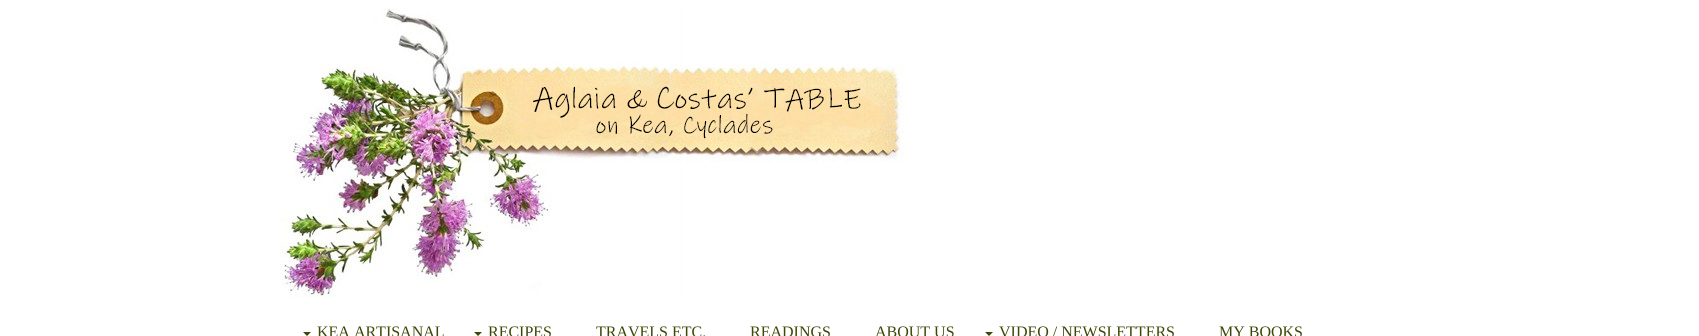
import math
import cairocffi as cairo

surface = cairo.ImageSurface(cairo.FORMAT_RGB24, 1699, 336)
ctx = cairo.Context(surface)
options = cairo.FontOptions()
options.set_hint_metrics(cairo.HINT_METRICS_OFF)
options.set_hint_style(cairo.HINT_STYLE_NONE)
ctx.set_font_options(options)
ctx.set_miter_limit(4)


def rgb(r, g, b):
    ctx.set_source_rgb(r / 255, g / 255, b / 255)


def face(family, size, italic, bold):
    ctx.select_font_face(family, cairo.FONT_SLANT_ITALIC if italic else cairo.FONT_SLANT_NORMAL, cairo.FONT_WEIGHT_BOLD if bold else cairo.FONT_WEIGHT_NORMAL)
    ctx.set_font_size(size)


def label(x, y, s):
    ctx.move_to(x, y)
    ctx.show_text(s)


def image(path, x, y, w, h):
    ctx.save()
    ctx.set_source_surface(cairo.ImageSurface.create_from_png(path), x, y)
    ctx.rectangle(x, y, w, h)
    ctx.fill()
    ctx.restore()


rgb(255, 255, 255)
ctx.paint()
image('image0.png', 280, 8, 625, 290)
rgb(60, 72, 6)
ctx.new_path()
ctx.move_to(303, 332)
ctx.line_to(311, 332)
ctx.line_to(307, 336)
ctx.close_path()
ctx.fill()
face('Liberation Serif', 16, 0, 0)
label(317, 337, 'KEA ARTISANAL')
ctx.new_path()
ctx.move_to(474, 332)
ctx.line_to(482, 332)
ctx.line_to(478, 336)
ctx.close_path()
ctx.fill()
label(488, 337, 'RECIPES')
label(596, 337, 'TRAVELS ETC.')
label(750, 337, 'READINGS')
label(875, 337, 'ABOUT US')
ctx.new_path()
ctx.move_to(985, 332)
ctx.line_to(993, 332)
ctx.line_to(989, 336)
ctx.close_path()
ctx.fill()
label(999, 337, 'VIDEO / NEWSLETTERS')
label(1219, 337, 'MY BOOKS')
surface.write_to_png('render.png')
